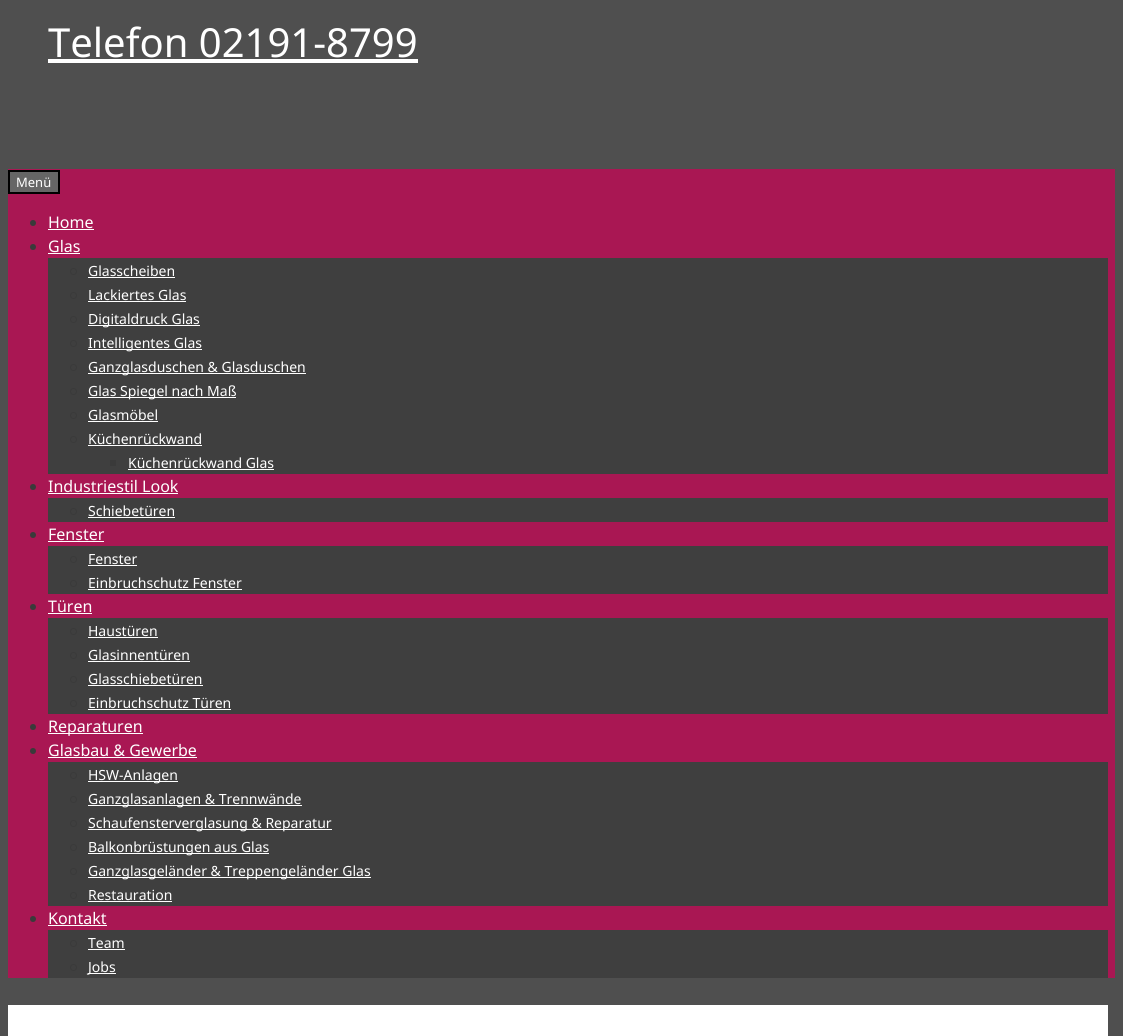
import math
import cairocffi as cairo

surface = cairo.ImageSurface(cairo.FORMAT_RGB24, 1123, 1036)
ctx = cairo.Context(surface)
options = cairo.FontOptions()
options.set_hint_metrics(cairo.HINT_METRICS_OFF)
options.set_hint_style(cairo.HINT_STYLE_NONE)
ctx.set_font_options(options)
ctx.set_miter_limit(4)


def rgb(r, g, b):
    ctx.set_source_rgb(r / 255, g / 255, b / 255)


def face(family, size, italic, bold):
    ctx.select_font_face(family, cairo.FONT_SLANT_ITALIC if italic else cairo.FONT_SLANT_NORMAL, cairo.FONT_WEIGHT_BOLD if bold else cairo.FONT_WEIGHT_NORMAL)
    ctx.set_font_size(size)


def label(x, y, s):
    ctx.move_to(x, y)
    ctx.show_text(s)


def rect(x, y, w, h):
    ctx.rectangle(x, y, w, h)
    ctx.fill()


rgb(79, 79, 79)
ctx.paint()
face('Noto Sans', 40, 0, 0)
rgb(255, 255, 255)
label(48, 57, 'Telefon 02191-8799')
rect(48, 59, 370, 4)
rgb(169, 23, 83)
rect(8, 169, 1107, 809)
rgb(102, 102, 102)
ctx.rectangle(9, 171, 50, 22)
ctx.fill_preserve()
rgb(0, 0, 0)
ctx.stroke()
face('Noto Sans', 13, 0, 0)
rgb(255, 255, 255)
label(16, 187, 'Menü')
rgb(58, 58, 58)
ctx.new_path()
ctx.arc(33, 223, 3, 0, 2 * math.pi)
ctx.fill()
face('Noto Sans', 16, 0, 0)
rgb(255, 255, 255)
label(48, 228, 'Home')
rect(48, 229, 46, 1)
rgb(58, 58, 58)
ctx.new_path()
ctx.arc(33, 247, 3, 0, 2 * math.pi)
ctx.fill()
rgb(255, 255, 255)
label(48, 252, 'Glas')
rect(48, 253, 32, 1)
rgb(63, 63, 63)
rect(48, 258, 1060, 216)
ctx.new_path()
ctx.arc(73.5, 271.5, 3, 0, 2 * math.pi)
rgb(58, 58, 58)
ctx.set_line_width(1)
ctx.stroke()
face('Noto Sans', 14, 0, 0)
rgb(255, 255, 255)
label(88, 276, 'Glasscheiben')
rect(88, 277, 87, 1)
ctx.new_path()
ctx.arc(73.5, 295.5, 3, 0, 2 * math.pi)
rgb(58, 58, 58)
ctx.stroke()
rgb(255, 255, 255)
label(88, 300, 'Lackiertes Glas')
rect(88, 301, 98, 1)
ctx.new_path()
ctx.arc(73.5, 319.5, 3, 0, 2 * math.pi)
rgb(58, 58, 58)
ctx.stroke()
rgb(255, 255, 255)
rect(88, 325, 112, 1)
label(88, 324, 'Digitaldruck Glas')
ctx.new_path()
ctx.arc(73.5, 343.5, 3, 0, 2 * math.pi)
rgb(58, 58, 58)
ctx.stroke()
rgb(255, 255, 255)
rect(88, 349, 114, 1)
label(88, 348, 'Intelligentes Glas')
ctx.new_path()
ctx.arc(73.5, 367.5, 3, 0, 2 * math.pi)
rgb(58, 58, 58)
ctx.stroke()
rgb(255, 255, 255)
rect(88, 373, 218, 1)
label(88, 372, 'Ganzglasduschen & Glasduschen')
ctx.new_path()
ctx.arc(73.5, 391.5, 3, 0, 2 * math.pi)
rgb(58, 58, 58)
ctx.stroke()
rgb(255, 255, 255)
rect(88, 397, 148, 1)
label(88, 396, 'Glas Spiegel nach Maß')
ctx.new_path()
ctx.arc(73.5, 415.5, 3, 0, 2 * math.pi)
rgb(58, 58, 58)
ctx.stroke()
rgb(255, 255, 255)
label(88, 420, 'Glasmöbel')
rect(88, 421, 70, 1)
ctx.new_path()
ctx.arc(73.5, 439.5, 3, 0, 2 * math.pi)
rgb(58, 58, 58)
ctx.stroke()
rgb(255, 255, 255)
label(88, 444, 'Küchenrückwand')
rect(88, 445, 114, 1)
rgb(58, 58, 58)
rect(110, 460, 6, 6)
rgb(255, 255, 255)
label(128, 468, 'Küchenrückwand Glas')
rect(128, 469, 146, 1)
rgb(58, 58, 58)
ctx.new_path()
ctx.arc(33, 487, 3, 0, 2 * math.pi)
ctx.fill()
face('Noto Sans', 16, 0, 0)
rgb(255, 255, 255)
label(48, 492, 'Industriestil Look')
rect(48, 493, 130, 1)
rgb(63, 63, 63)
rect(48, 498, 1060, 24)
ctx.new_path()
ctx.arc(73.5, 511.5, 3, 0, 2 * math.pi)
rgb(58, 58, 58)
ctx.stroke()
face('Noto Sans', 14, 0, 0)
rgb(255, 255, 255)
label(88, 516, 'Schiebetüren')
rect(88, 517, 87, 1)
rgb(58, 58, 58)
ctx.new_path()
ctx.arc(33, 535, 3, 0, 2 * math.pi)
ctx.fill()
face('Noto Sans', 16, 0, 0)
rgb(255, 255, 255)
label(48, 540, 'Fenster')
rect(48, 541, 56, 1)
rgb(63, 63, 63)
rect(48, 546, 1060, 48)
ctx.new_path()
ctx.arc(73.5, 559.5, 3, 0, 2 * math.pi)
rgb(58, 58, 58)
ctx.stroke()
face('Noto Sans', 14, 0, 0)
rgb(255, 255, 255)
label(88, 564, 'Fenster')
rect(88, 565, 49, 1)
ctx.new_path()
ctx.arc(73.5, 583.5, 3, 0, 2 * math.pi)
rgb(58, 58, 58)
ctx.stroke()
rgb(255, 255, 255)
label(88, 588, 'Einbruchschutz Fenster')
rect(88, 589, 154, 1)
rgb(58, 58, 58)
ctx.new_path()
ctx.arc(33, 607, 3, 0, 2 * math.pi)
ctx.fill()
face('Noto Sans', 16, 0, 0)
rgb(255, 255, 255)
label(48, 612, 'Türen')
rect(48, 613, 44, 1)
rgb(63, 63, 63)
rect(48, 618, 1060, 96)
ctx.new_path()
ctx.arc(73.5, 631.5, 3, 0, 2 * math.pi)
rgb(58, 58, 58)
ctx.stroke()
face('Noto Sans', 14, 0, 0)
rgb(255, 255, 255)
label(88, 636, 'Haustüren')
rect(88, 637, 70, 1)
ctx.new_path()
ctx.arc(73.5, 655.5, 3, 0, 2 * math.pi)
rgb(58, 58, 58)
ctx.stroke()
rgb(255, 255, 255)
label(88, 660, 'Glasinnentüren')
rect(88, 661, 102, 1)
ctx.new_path()
ctx.arc(73.5, 679.5, 3, 0, 2 * math.pi)
rgb(58, 58, 58)
ctx.stroke()
rgb(255, 255, 255)
label(88, 684, 'Glasschiebetüren')
rect(88, 685, 115, 1)
ctx.new_path()
ctx.arc(73.5, 703.5, 3, 0, 2 * math.pi)
rgb(58, 58, 58)
ctx.stroke()
rgb(255, 255, 255)
label(88, 708, 'Einbruchschutz Türen')
rect(88, 709, 143, 1)
rgb(58, 58, 58)
ctx.new_path()
ctx.arc(33, 727, 3, 0, 2 * math.pi)
ctx.fill()
rgb(255, 255, 255)
rect(48, 733, 95, 1)
face('Noto Sans', 16, 0, 0)
label(48, 732, 'Reparaturen')
rgb(58, 58, 58)
ctx.new_path()
ctx.arc(33, 751, 3, 0, 2 * math.pi)
ctx.fill()
rgb(255, 255, 255)
label(48, 756, 'Glasbau & Gewerbe')
rect(48, 757, 149, 1)
rgb(63, 63, 63)
rect(48, 762, 1060, 144)
ctx.new_path()
ctx.arc(73.5, 775.5, 3, 0, 2 * math.pi)
rgb(58, 58, 58)
ctx.stroke()
rgb(255, 255, 255)
rect(88, 781, 90, 1)
face('Noto Sans', 14, 0, 0)
label(88, 780, 'HSW-Anlagen')
ctx.new_path()
ctx.arc(73.5, 799.5, 3, 0, 2 * math.pi)
rgb(58, 58, 58)
ctx.stroke()
rgb(255, 255, 255)
rect(88, 805, 214, 1)
label(88, 804, 'Ganzglasanlagen & Trennwände')
ctx.new_path()
ctx.arc(73.5, 823.5, 3, 0, 2 * math.pi)
rgb(58, 58, 58)
ctx.stroke()
rgb(255, 255, 255)
rect(88, 829, 244, 1)
label(88, 828, 'Schaufensterverglasung & Reparatur')
ctx.new_path()
ctx.arc(73.5, 847.5, 3, 0, 2 * math.pi)
rgb(58, 58, 58)
ctx.stroke()
rgb(255, 255, 255)
rect(88, 853, 181, 1)
label(88, 852, 'Balkonbrüstungen aus Glas')
ctx.new_path()
ctx.arc(73.5, 871.5, 3, 0, 2 * math.pi)
rgb(58, 58, 58)
ctx.stroke()
rgb(255, 255, 255)
rect(88, 877, 283, 1)
label(88, 876, 'Ganzglasgeländer & Treppengeländer Glas')
ctx.new_path()
ctx.arc(73.5, 895.5, 3, 0, 2 * math.pi)
rgb(58, 58, 58)
ctx.stroke()
rgb(255, 255, 255)
label(88, 900, 'Restauration')
rect(88, 901, 84, 1)
rgb(58, 58, 58)
ctx.new_path()
ctx.arc(33, 919, 3, 0, 2 * math.pi)
ctx.fill()
face('Noto Sans', 16, 0, 0)
rgb(255, 255, 255)
label(48, 924, 'Kontakt')
rect(48, 925, 59, 1)
rgb(63, 63, 63)
rect(48, 930, 1060, 48)
ctx.new_path()
ctx.arc(73.5, 943.5, 3, 0, 2 * math.pi)
rgb(58, 58, 58)
ctx.stroke()
face('Noto Sans', 14, 0, 0)
rgb(255, 255, 255)
label(88, 948, 'Team')
rect(88, 949, 37, 1)
ctx.new_path()
ctx.arc(73.5, 967.5, 3, 0, 2 * math.pi)
rgb(58, 58, 58)
ctx.stroke()
rgb(255, 255, 255)
rect(88, 973, 28, 1)
label(88, 972, 'Jobs')
rect(8, 1005, 1100, 31)
surface.write_to_png('render.png')
